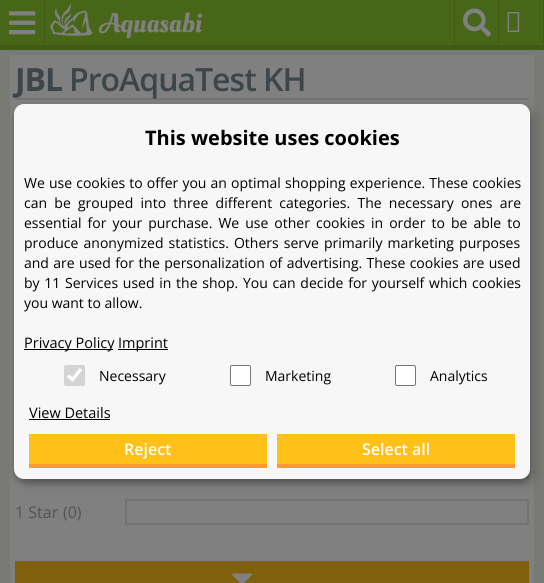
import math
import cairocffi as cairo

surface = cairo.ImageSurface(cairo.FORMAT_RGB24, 544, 583)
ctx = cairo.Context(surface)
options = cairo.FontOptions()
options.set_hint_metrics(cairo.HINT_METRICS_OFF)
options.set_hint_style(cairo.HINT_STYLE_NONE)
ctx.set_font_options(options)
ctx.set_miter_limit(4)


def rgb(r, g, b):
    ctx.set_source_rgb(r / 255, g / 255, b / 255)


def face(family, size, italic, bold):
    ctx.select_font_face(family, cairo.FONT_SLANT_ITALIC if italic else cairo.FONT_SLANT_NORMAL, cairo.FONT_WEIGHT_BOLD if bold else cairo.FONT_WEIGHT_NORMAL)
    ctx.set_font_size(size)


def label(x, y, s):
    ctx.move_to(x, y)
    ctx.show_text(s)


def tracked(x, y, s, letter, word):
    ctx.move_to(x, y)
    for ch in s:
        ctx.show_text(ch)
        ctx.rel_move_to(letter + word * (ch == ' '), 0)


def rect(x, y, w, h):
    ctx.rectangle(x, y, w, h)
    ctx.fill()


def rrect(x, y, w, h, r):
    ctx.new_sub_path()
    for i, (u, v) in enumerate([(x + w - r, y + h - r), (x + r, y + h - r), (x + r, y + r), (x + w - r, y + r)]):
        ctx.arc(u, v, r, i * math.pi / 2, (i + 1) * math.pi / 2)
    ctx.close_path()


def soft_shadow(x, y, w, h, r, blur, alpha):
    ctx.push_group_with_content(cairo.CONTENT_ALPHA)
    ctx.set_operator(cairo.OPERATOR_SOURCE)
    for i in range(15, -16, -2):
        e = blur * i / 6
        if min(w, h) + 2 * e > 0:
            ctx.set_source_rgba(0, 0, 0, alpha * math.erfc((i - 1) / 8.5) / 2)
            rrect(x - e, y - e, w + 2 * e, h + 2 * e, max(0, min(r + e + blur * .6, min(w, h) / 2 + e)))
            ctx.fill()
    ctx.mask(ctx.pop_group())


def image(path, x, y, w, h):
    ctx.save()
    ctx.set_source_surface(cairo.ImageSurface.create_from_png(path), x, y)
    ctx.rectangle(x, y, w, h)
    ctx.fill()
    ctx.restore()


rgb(119, 122, 117)
ctx.paint()
rgb(72, 102, 24)
rect(0, 0, 543, 45)
rgb(64, 91, 22)
rect(0, 45, 544, 5)
rect(44, 0, 1, 45)
image('image0.png', 9, 11, 27, 24)
image('image1.png', 50, 3, 153, 36)
rect(498, 0, 1, 45)
rect(454, 0, 1, 45)
image('image2.png', 463, 8, 28, 29)
rect(543, 0, 1, 45)
image('image3.png', 507, 12, 13, 20)
rgb(128, 128, 128)
rect(10, 55, 524, 528)
rgb(115, 115, 115)
rect(15, 98, 514, 2)
face('Open Sans', 32, 0, 1)
rgb(61, 69, 73)
tracked(15, 91, 'JBL', -1, 0)
face('Open Sans SemiBold', 32, 0, 0)
tracked(69, 91, 'ProAquaTest KH', -1, 0)
ctx.rectangle(126, 454, 402, 24)
rgb(115, 115, 115)
ctx.stroke()
face('Open Sans', 16, 0, 0)
rgb(79, 83, 84)
label(15, 518, '1 Star')
label(63, 518, '(0)')
ctx.rectangle(126, 500, 402, 24)
rgb(115, 115, 115)
ctx.stroke()
rgb(128, 96, 12)
rect(15, 561, 514, 22)
image('image4.png', 232, 573, 20, 10)
rgb(0, 0, 0)
soft_shadow(19, 109, 516, 375, 10, 5, 0.19)
soft_shadow(14, 108, 516, 375, 10, 3, 0.2)
rgb(248, 247, 247)
rrect(14, 104, 516, 375, 10)
ctx.fill()
face('Open Sans', 20, 0, 1)
rgb(0, 0, 0)
label(145, 145, 'This website uses cookies')
face('Open Sans', 14, 0, 0)
tracked(24, 188, 'We use cookies to offer you an optimal shopping experience. These cookies', 0, 0.5)
tracked(24, 208, 'can be grouped into three different categories. The necessary ones are', 0, 3.6)
tracked(24, 228, 'essential for your purchase. We use other cookies in order to be able to', 0, 2.4)
tracked(24, 248, 'produce anonymized statistics. Others serve primarily marketing purposes', 0, 1.5)
tracked(24, 268, 'and are used for the personalization of advertising. These cookies are used', 0, 0.75)
tracked(24, 288, 'by 11 Services used in the shop. You can decide for yourself which cookies', 0, 1.1)
label(24, 308, 'you want to allow.')
rect(24, 349, 89, 1)
face('Open Sans', 14.5, 0, 0)
label(24, 348, 'Privacy Policy')
rect(118, 349, 50, 1)
label(118, 348, 'Imprint')
rgb(213, 212, 212)
rrect(64, 365, 21, 21, 2)
ctx.fill()
ctx.new_path()
ctx.move_to(68, 375.5)
ctx.line_to(72.5, 379.5)
ctx.line_to(81, 369)
rgb(254, 254, 254)
ctx.set_line_width(3.4)
ctx.stroke()
face('Open Sans', 14, 0, 0)
rgb(0, 0, 0)
label(99, 381, 'Necessary')
rgb(255, 255, 255)
rrect(230.5, 365.5, 20, 20, 1.5)
ctx.fill_preserve()
rgb(118, 118, 118)
ctx.set_line_width(1)
ctx.stroke()
rgb(0, 0, 0)
label(265, 381, 'Marketing')
rgb(255, 255, 255)
rrect(395.5, 365.5, 20, 20, 1.5)
ctx.fill_preserve()
rgb(118, 118, 118)
ctx.stroke()
rgb(0, 0, 0)
label(430, 381, 'Analytics')
face('Open Sans', 14.5, 0, 0)
label(29, 418, 'View Details')
rect(29, 419, 81, 1)
rgb(255, 153, 52)
rect(29, 464, 238, 4)
rgb(255, 192, 24)
rect(29, 434, 238, 30)
face('Open Sans SemiBold', 16, 0, 0)
rgb(255, 255, 255)
label(124, 455, 'Reject')
rgb(255, 153, 52)
rect(277, 464, 238, 4)
rgb(255, 192, 24)
rect(277, 434, 238, 30)
rgb(255, 255, 255)
label(362, 455, 'Select all')
surface.write_to_png('render.png')
